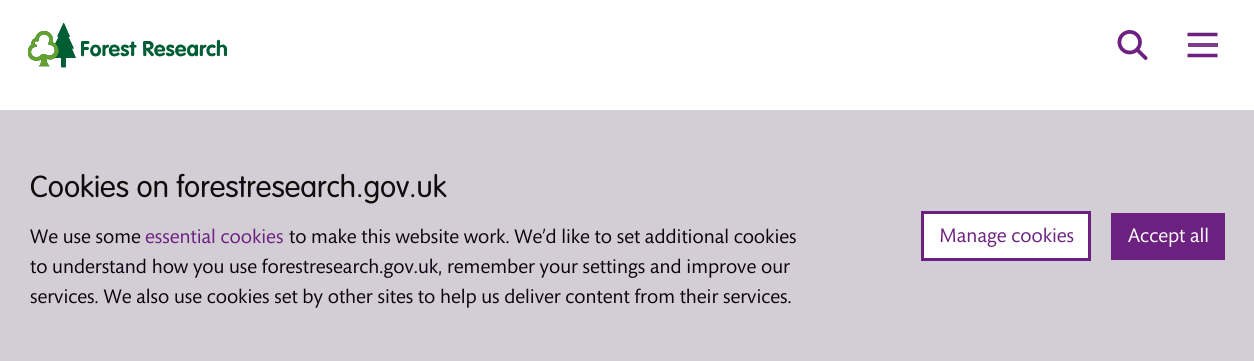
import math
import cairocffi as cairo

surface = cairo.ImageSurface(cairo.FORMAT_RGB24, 1254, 361)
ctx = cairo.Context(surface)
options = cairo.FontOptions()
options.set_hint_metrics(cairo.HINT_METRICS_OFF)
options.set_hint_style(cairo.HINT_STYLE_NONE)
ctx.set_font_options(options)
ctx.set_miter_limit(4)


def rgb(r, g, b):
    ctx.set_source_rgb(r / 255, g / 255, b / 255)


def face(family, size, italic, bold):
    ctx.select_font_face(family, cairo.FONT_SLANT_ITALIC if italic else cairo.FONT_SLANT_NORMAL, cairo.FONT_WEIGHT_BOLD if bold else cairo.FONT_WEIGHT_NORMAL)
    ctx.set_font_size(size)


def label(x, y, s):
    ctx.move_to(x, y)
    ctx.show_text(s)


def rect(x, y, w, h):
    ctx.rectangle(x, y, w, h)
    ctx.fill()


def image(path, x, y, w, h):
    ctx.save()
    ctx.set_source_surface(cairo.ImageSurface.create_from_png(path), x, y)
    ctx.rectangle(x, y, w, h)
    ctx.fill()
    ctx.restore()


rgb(255, 255, 255)
ctx.paint()
image('image0.png', 28, 23, 199, 45)
image('image1.png', 1117, 30, 31, 30)
ctx.new_path()
ctx.move_to(1187.5, 34.5)
ctx.line_to(1217.5, 34.5)
rgb(108, 32, 127)
ctx.set_line_width(3.5)
ctx.stroke()
rgb(126, 60, 143)
rect(1188, 43, 30, 4)
ctx.new_path()
ctx.move_to(1187.5, 55.5)
ctx.line_to(1217.5, 55.5)
rgb(108, 32, 127)
ctx.stroke()
rgb(211, 205, 213)
rect(0, 110, 1254, 251)
face('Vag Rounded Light', 30, 0, 0)
rgb(13, 13, 13)
label(30, 197, 'Cookies on forestresearch.gov.uk')
face('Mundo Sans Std', 20, 0, 0)
rgb(14, 2, 17)
label(30, 243, 'We use some')
rgb(108, 32, 127)
label(145, 243, 'essential cookies')
rgb(14, 2, 17)
label(289, 243, 'to make this website work. We’d like to set additional cookies')
label(30, 273, 'to understand how you use forestresearch.gov.uk, remember your settings and improve our')
label(30, 303, 'services. We also use cookies set by other sites to help us deliver content from their services.')
rgb(255, 255, 255)
ctx.rectangle(922.5, 212.5, 167, 47)
ctx.fill_preserve()
rgb(108, 32, 127)
ctx.set_line_width(3)
ctx.stroke()
label(939, 242, 'Manage cookies')
rect(1111, 213, 114, 47)
rgb(255, 255, 255)
label(1128, 242, 'Accept all')
surface.write_to_png('render.png')
